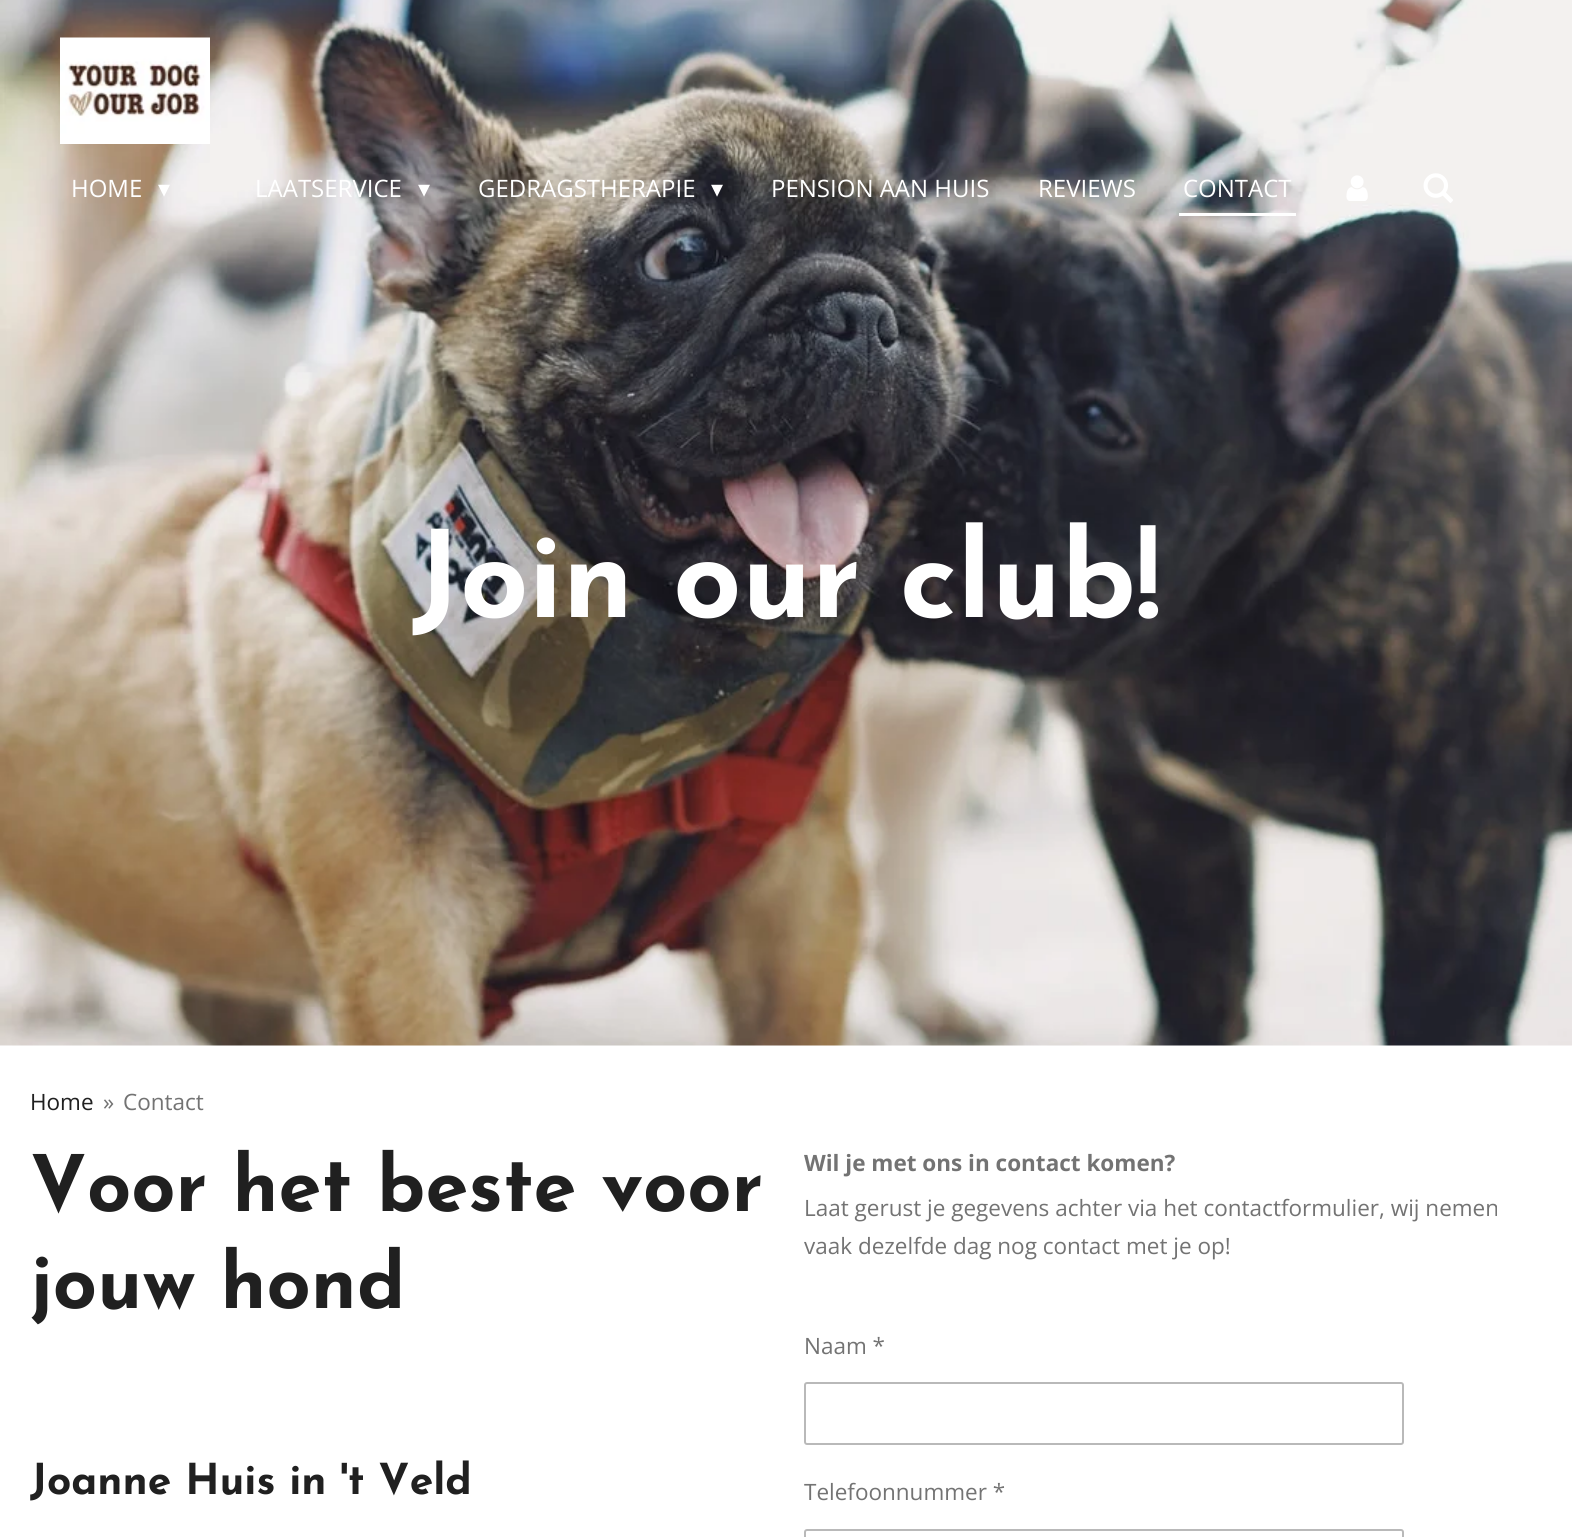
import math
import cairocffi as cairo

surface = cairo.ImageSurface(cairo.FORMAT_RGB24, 1572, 1537)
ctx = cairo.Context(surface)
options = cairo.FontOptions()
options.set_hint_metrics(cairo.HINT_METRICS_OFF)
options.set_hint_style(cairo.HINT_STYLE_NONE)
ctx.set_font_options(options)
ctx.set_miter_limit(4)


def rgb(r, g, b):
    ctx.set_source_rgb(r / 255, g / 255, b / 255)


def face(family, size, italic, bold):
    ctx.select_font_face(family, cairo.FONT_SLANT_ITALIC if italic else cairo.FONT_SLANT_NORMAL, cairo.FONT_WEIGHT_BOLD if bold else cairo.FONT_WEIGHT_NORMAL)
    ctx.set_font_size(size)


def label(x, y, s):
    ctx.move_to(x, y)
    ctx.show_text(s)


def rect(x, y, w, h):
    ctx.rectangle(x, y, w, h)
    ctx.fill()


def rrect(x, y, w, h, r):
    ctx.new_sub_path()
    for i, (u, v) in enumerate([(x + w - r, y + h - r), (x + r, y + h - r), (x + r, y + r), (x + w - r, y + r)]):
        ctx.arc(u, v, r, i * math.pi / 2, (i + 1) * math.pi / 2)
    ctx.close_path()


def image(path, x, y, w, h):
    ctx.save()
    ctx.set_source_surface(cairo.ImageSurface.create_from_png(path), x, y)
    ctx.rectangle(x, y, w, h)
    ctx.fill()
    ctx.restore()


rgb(255, 255, 255)
ctx.paint()
image('image3.png', 0, 0, 1572, 1046)
image('image0.png', 60, 37, 150, 107)
face('Open Sans', 24, 0, 0)
rgb(255, 255, 255)
label(71, 197, 'HOME')
face('DejaVu Sans', 24, 0, 0)
label(158, 197, '▾')
face('Open Sans', 24, 0, 0)
label(255, 197, 'LAATSERVICE')
face('DejaVu Sans', 24, 0, 0)
label(418, 197, '▾')
face('Open Sans', 24, 0, 0)
label(478, 197, 'GEDRAGSTHERAPIE')
face('DejaVu Sans', 24, 0, 0)
label(711, 197, '▾')
face('Open Sans', 24, 0, 0)
label(771, 197, 'PENSION AAN HUIS')
label(1038, 197, 'REVIEWS')
rect(1179, 213, 117, 3)
label(1183, 197, 'CONTACT')
image('image1.png', 1346, 175, 22, 26)
image('image2.png', 1423, 173, 30, 30)
face('Josefin Sans', 120, 0, 1)
label(412, 617, 'Join our club!')
face('Open Sans', 22.5, 0, 0)
rgb(32, 32, 32)
label(30, 1110, 'Home')
rgb(115, 115, 115)
label(103, 1110, '»')
label(123, 1110, 'Contact')
face('Josefin Sans', 77.5, 0, 1)
rgb(32, 32, 32)
label(30, 1211, 'Voor het beste voor')
label(30, 1308, 'jouw hond')
face('Josefin Sans', 42.5, 0, 1)
label(30, 1494, 'Joanne Huis in \'t Veld')
face('Open Sans', 22.5, 0, 1)
rgb(115, 115, 115)
label(804, 1171, 'Wil je met ons in contact komen?')
face('Open Sans', 22.5, 0, 0)
label(804, 1216, 'Laat gerust je gegevens achter via het contactformulier, wij nemen')
label(804, 1254, 'vaak dezelfde dag nog contact met je op!')
label(804, 1354, 'Naam *')
rrect(805, 1383, 598, 61, 2)
rgb(185, 185, 185)
ctx.stroke()
rgb(115, 115, 115)
label(804, 1500, 'Telefoonnummer *')
rrect(805, 1530, 598, 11, 2)
rgb(185, 185, 185)
ctx.stroke()
surface.write_to_png('render.png')
